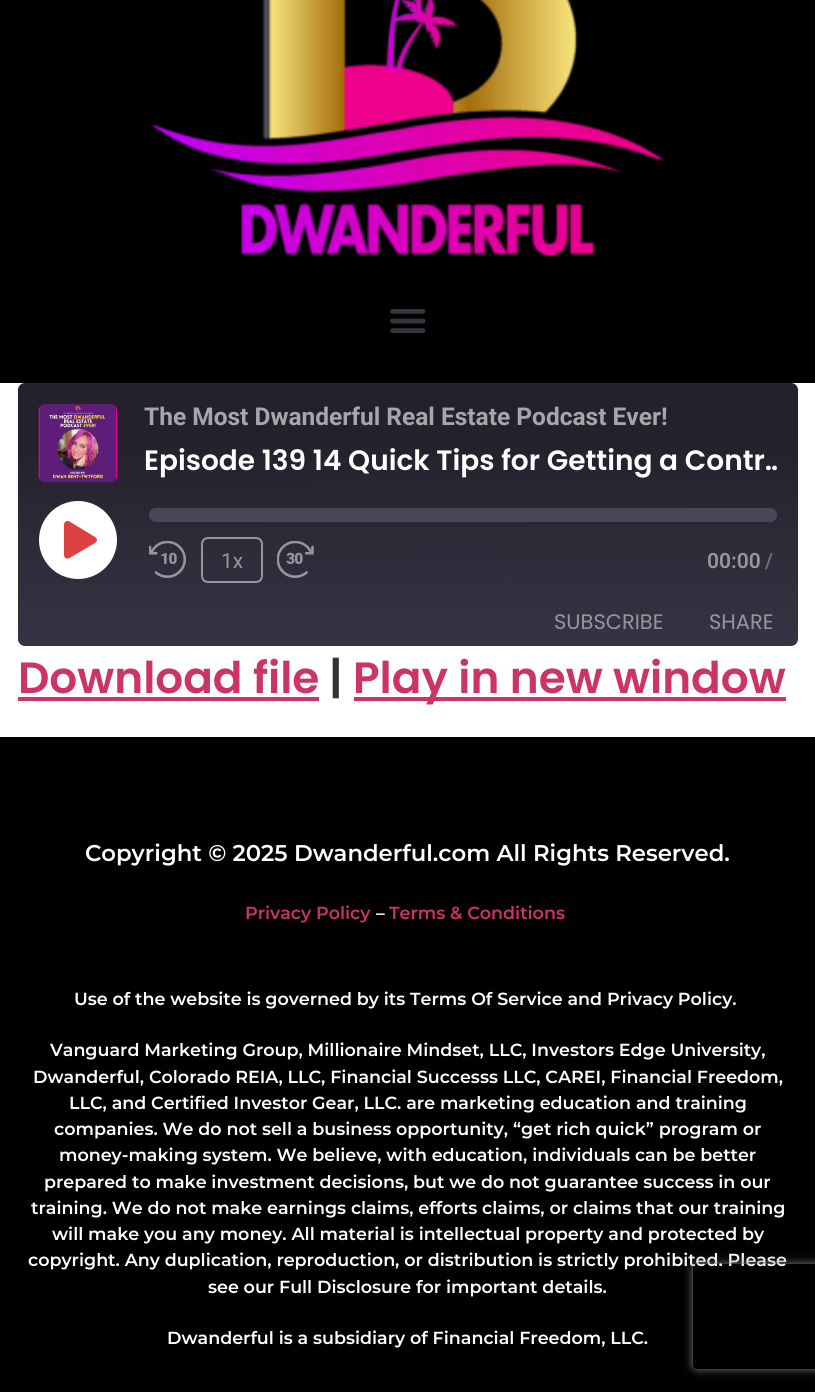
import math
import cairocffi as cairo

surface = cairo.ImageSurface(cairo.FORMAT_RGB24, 815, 1392)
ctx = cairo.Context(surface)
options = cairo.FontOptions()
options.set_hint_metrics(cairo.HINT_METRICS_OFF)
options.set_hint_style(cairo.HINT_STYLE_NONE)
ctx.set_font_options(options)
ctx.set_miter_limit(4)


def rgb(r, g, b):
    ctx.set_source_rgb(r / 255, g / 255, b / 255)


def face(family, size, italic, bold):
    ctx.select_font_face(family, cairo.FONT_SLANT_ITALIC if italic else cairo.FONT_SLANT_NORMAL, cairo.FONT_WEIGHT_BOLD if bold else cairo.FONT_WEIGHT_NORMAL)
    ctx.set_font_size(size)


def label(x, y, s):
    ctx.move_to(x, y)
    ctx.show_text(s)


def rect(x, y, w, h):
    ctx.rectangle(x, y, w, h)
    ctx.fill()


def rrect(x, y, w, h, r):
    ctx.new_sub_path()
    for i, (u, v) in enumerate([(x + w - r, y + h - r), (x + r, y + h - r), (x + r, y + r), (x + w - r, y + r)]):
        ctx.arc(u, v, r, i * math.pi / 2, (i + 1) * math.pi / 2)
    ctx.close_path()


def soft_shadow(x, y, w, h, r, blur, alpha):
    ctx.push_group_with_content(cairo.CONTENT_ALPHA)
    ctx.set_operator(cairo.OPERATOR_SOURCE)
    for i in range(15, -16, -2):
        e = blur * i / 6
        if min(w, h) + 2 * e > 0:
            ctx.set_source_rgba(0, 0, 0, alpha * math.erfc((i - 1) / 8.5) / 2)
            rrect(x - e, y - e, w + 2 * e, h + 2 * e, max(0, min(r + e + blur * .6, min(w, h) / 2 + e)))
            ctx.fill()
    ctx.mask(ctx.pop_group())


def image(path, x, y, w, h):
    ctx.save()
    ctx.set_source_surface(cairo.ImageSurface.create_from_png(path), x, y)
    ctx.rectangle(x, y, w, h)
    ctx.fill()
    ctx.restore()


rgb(255, 255, 255)
ctx.paint()
rgb(0, 0, 0)
rect(0, 0, 815, 383)
image('image0.png', 152, 0, 512, 255)
image('image1.png', 390, 309, 36, 25)
gradient = cairo.LinearGradient(408, 648, 407, 381)
gradient.add_color_stop_rgba(0.01, 0.22, 0.2, 0.267, 1)
gradient.add_color_stop_rgba(0.78, 0.141, 0.129, 0.173, 1)
ctx.set_source(gradient)
rrect(18, 383, 780, 263, 7)
ctx.fill()
image('image2.png', 38, 403, 80, 80)
face('Roboto', 24.5, 0, 1)
rgb(167, 166, 171)
label(144, 425, 'The Most Dwanderful Real Estate Podcast Ever!')
ctx.save()
ctx.rectangle(144, 443, 633, 44)
ctx.clip()
face('Poppins SemiBold', 28, 0, 0)
rgb(255, 255, 255)
label(144, 470, 'Episode 139 14 Quick Tips for Getting a Contr…')
ctx.restore()
rgb(255, 255, 255)
ctx.new_path()
ctx.arc(78, 540, 39, 0, 2 * math.pi)
ctx.fill()
rgb(221, 65, 66)
ctx.new_path()
ctx.move_to(95, 537)
ctx.line_to(69.5, 521.5)
ctx.curve_to(67.5, 520, 64, 521.5, 64, 524.5)
ctx.line_to(64, 555)
ctx.curve_to(64, 558, 67, 559.5, 69.5, 558)
ctx.line_to(95, 543)
ctx.curve_to(97.5, 541.5, 97.5, 538, 95, 537)
ctx.close_path()
ctx.fill()
rgb(76, 70, 89)
rrect(149, 508, 628, 14, 7)
ctx.fill()
image('image3.png', 149, 541, 37, 37)
rrect(202, 538, 60, 44, 6)
ctx.set_source_rgba(1, 1, 1, 0.5)
ctx.stroke()
face('Roboto', 21, 0, 0)
rgb(151, 149, 157)
label(221, 568, '1x')
image('image4.png', 277, 541, 37, 37)
face('Roboto SemiBold', 21, 0, 0)
label(707, 568, '00:00')
rgb(110, 107, 117)
label(765, 568, '/')
face('Poppins', 21, 0, 0)
rgb(151, 149, 157)
label(554, 629, 'SUBSCRIBE')
label(709, 629, 'SHARE')
face('Poppins SemiBold', 43.75, 0, 0)
rgb(204, 51, 102)
label(18, 693, 'Download file')
rect(18, 697, 301, 4)
rgb(51, 51, 51)
label(329, 693, '|')
rgb(204, 51, 102)
rect(354, 697, 432, 4)
label(353, 693, 'Play in new window')
rgb(0, 0, 0)
rect(0, 737, 815, 655)
face('Montserrat SemiBold', 22.75, 0, 0)
rgb(255, 255, 255)
label(85, 861, 'Copyright © 2025 Dwanderful.com All Rights Reserved.')
face('Montserrat SemiBold', 17.5, 0, 0)
rgb(204, 51, 102)
label(245, 919, 'Privacy Policy')
rgb(255, 255, 255)
label(376, 919, '–')
rgb(204, 51, 102)
label(389, 919, 'Terms & Conditions')
rgb(255, 255, 255)
label(74, 1005, 'Use of the website is governed by its Terms Of Service and Privacy Policy.')
label(50, 1056, 'Vanguard Marketing Group, Millionaire Mindset, LLC, Investors Edge University,')
label(33, 1083, 'Dwanderful, Colorado REIA, LLC, Financial Successs LLC, CAREI, Financial Freedom,')
label(69, 1109, 'LLC, and Certified Investor Gear, LLC. are marketing education and training')
label(54, 1135, 'companies. We do not sell a business opportunity, “get rich quick” program or')
label(59, 1161, 'money-making system. We believe, with education, individuals can be better')
label(44, 1188, 'prepared to make investment decisions, but we do not guarantee success in our')
label(31, 1214, 'training. We do not make earnings claims, efforts claims, or claims that our training')
label(52, 1240, 'will make you any money. All material is intellectual property and protected by')
label(28, 1266, 'copyright. Any duplication, reproduction, or distribution is strictly prohibited. Please')
label(208, 1293, 'see our Full Disclosure for important details.')
label(167, 1344, 'Dwanderful is a subsidiary of Financial Freedom, LLC.')
ctx.save()
ctx.set_fill_rule(cairo.FILL_RULE_EVEN_ODD)
ctx.new_path()
ctx.move_to(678, 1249)
ctx.line_to(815, 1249)
ctx.line_to(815, 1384)
ctx.line_to(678, 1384)
ctx.close_path()
ctx.move_to(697, 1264)
ctx.line_to(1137, 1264)
ctx.curve_to(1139, 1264, 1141, 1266, 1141, 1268)
ctx.line_to(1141, 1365)
ctx.curve_to(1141, 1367, 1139, 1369, 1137, 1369)
ctx.line_to(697, 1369)
ctx.curve_to(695, 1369, 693, 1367, 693, 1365)
ctx.line_to(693, 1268)
ctx.curve_to(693, 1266, 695, 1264, 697, 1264)
ctx.close_path()
ctx.clip()
rgb(128, 128, 128)
soft_shadow(693, 1264, 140, 105, 4, 4.5, 1)
ctx.restore()
surface.write_to_png('render.png')
